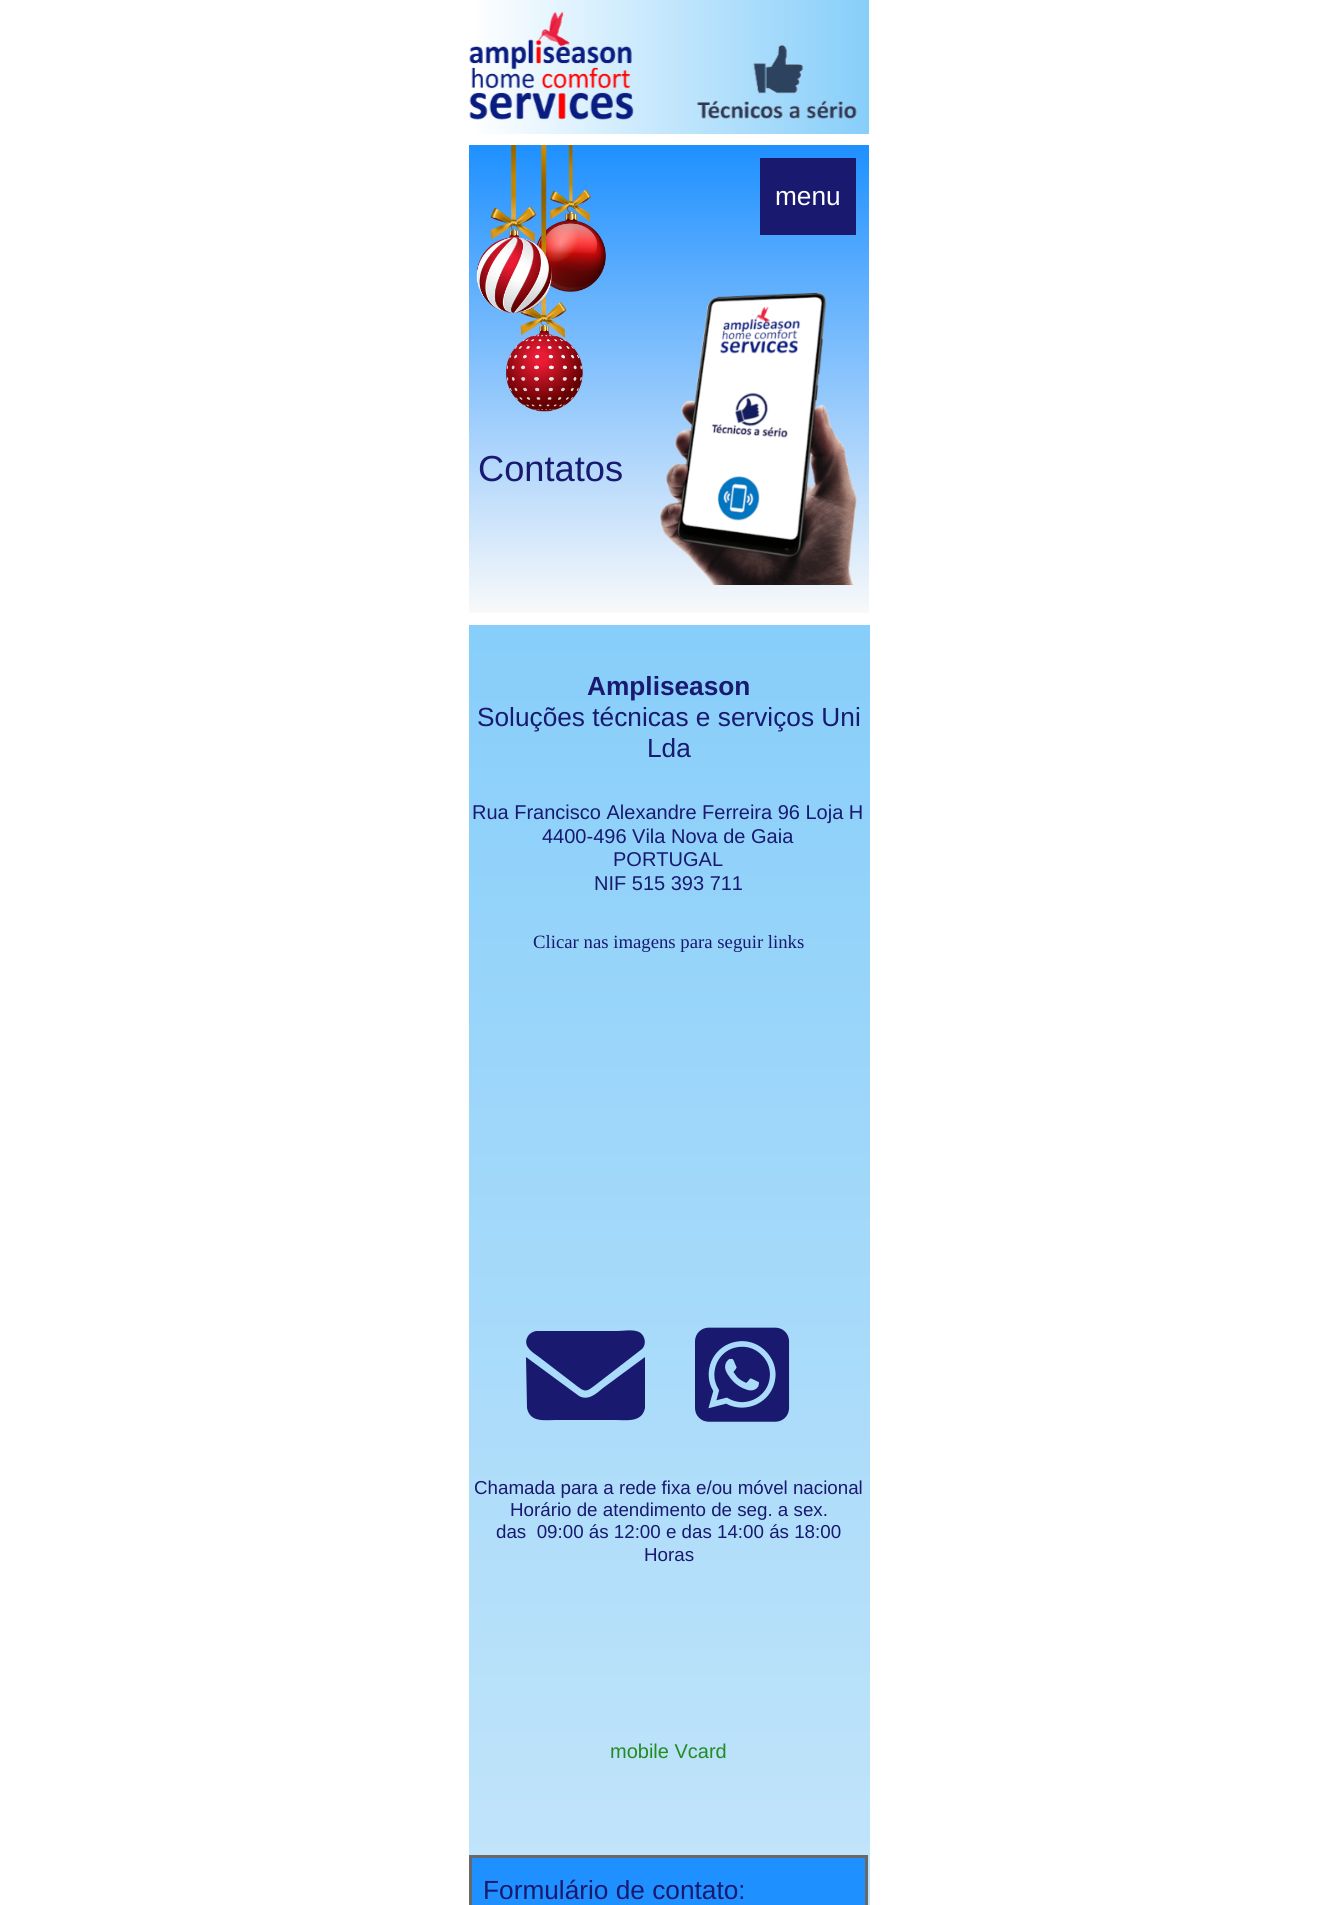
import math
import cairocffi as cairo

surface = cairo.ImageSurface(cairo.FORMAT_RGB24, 1337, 1905)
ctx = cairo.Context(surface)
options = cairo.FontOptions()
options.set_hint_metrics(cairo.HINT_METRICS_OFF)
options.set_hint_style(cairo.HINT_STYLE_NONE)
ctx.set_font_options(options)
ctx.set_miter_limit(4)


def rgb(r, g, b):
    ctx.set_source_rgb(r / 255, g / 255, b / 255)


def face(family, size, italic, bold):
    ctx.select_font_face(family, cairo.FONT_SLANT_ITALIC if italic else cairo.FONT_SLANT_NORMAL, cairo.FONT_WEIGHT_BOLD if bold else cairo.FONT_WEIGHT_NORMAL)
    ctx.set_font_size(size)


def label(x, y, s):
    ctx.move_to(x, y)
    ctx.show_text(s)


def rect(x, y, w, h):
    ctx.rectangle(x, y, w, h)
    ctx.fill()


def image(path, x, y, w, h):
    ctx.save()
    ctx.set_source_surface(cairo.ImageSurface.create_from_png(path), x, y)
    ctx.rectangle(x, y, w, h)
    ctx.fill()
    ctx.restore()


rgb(255, 255, 255)
ctx.paint()
gradient = cairo.LinearGradient(869, 67, 469, 67)
gradient.add_color_stop_rgba(0, 0.529, 0.808, 0.98, 1)
gradient.add_color_stop_rgba(1, 1, 1, 1, 1)
ctx.set_source(gradient)
rect(477, 0, 392, 134)
image('image0.png', 469, 11, 165, 109)
image('image1.png', 696, 45, 161, 74)
gradient = cairo.LinearGradient(669, 613, 669, 145)
gradient.add_color_stop_rgba(0, 0.973, 0.976, 0.98, 1)
gradient.add_color_stop_rgba(1, 0.118, 0.565, 1, 1)
ctx.set_source(gradient)
rect(469, 145, 400, 468)
image('image2.png', 476, 145, 130, 267)
rgb(25, 25, 112)
rect(760, 158, 96, 77)
face('Liberation Sans', 26.25, 0, 0)
rgb(255, 255, 255)
label(775, 205, 'menu')
face('Liberation Sans', 36.25, 0, 0)
rgb(25, 25, 112)
label(478, 481, 'Contatos')
image('image3.png', 659, 292, 198, 293)
gradient = cairo.LinearGradient(669, 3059, 669, 625)
gradient.add_color_stop_rgba(0, 0.973, 0.976, 0.98, 1)
gradient.add_color_stop_rgba(1, 0.529, 0.808, 0.98, 1)
ctx.set_source(gradient)
rect(469, 625, 401, 1280)
face('Liberation Sans', 26.25, 0, 1)
rgb(25, 25, 112)
label(587, 695, 'Ampliseason')
face('Liberation Sans', 26.25, 0, 0)
label(477, 726, 'Soluções técnicas e serviços Uni')
label(647, 757, 'Lda')
face('Liberation Sans', 20, 0, 0)
label(472, 819, 'Rua Francisco Alexandre Ferreira 96 Loja H')
label(542, 843, '4400-496 Vila Nova de Gaia')
label(613, 866, 'PORTUGAL')
label(594, 890, 'NIF 515 393 711')
face('Liberation Serif', 18.75, 0, 0)
label(533, 948, 'Clicar nas imagens para seguir links')
ctx.new_path()
ctx.move_to(537, 1331)
ctx.curve_to(534, 1331, 530, 1333, 528, 1336)
ctx.curve_to(522, 1346, 532, 1352, 539, 1357)
ctx.line_to(573, 1383)
ctx.curve_to(586, 1393, 585, 1393, 598, 1383)
ctx.line_to(642, 1349)
ctx.curve_to(647, 1344, 645, 1335, 639, 1332)
ctx.curve_to(633, 1329, 622, 1331, 618, 1331)
ctx.close_path()
ctx.move_to(526, 1357)
ctx.line_to(527, 1408)
ctx.curve_to(530, 1423, 545, 1420, 556, 1420)
ctx.line_to(615, 1420)
ctx.curve_to(626, 1420, 642, 1423, 645, 1408)
ctx.line_to(645, 1357)
ctx.line_to(603, 1388)
ctx.curve_to(596, 1394, 588, 1401, 579, 1396)
ctx.close_path()
ctx.fill()
image('image4.png', 695, 1327, 95, 95)
face('Liberation Sans', 18.75, 0, 0)
label(474, 1494, 'Chamada para a rede fixa e/ou móvel nacional')
label(510, 1516, 'Horário de atendimento de seg. a sex.')
label(496, 1538, 'das  09:00 ás 12:00 e das 14:00 ás 18:00')
label(644, 1561, 'Horas')
face('Liberation Sans', 20, 0, 0)
rgb(34, 139, 34)
label(610, 1758, 'mobile Vcard')
rgb(30, 144, 255)
ctx.rectangle(470.5, 1856.5, 396, 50)
ctx.fill_preserve()
rgb(105, 105, 105)
ctx.set_line_width(3)
ctx.stroke()
face('Liberation Sans', 26.25, 0, 0)
rgb(25, 25, 112)
label(483, 1899, 'Formulário de contato:')
surface.write_to_png('render.png')
